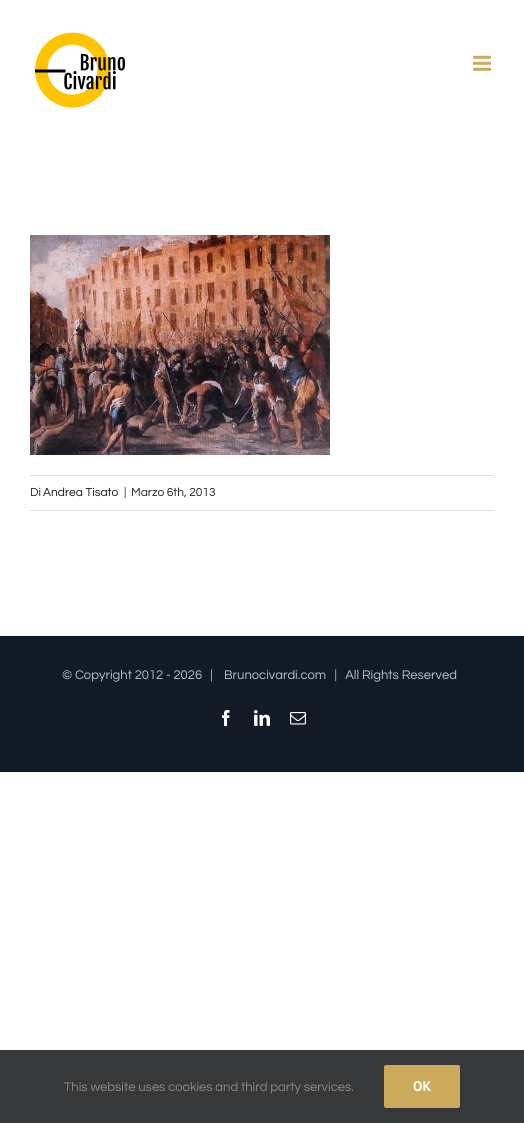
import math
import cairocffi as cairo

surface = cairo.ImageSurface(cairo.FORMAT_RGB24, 524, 1123)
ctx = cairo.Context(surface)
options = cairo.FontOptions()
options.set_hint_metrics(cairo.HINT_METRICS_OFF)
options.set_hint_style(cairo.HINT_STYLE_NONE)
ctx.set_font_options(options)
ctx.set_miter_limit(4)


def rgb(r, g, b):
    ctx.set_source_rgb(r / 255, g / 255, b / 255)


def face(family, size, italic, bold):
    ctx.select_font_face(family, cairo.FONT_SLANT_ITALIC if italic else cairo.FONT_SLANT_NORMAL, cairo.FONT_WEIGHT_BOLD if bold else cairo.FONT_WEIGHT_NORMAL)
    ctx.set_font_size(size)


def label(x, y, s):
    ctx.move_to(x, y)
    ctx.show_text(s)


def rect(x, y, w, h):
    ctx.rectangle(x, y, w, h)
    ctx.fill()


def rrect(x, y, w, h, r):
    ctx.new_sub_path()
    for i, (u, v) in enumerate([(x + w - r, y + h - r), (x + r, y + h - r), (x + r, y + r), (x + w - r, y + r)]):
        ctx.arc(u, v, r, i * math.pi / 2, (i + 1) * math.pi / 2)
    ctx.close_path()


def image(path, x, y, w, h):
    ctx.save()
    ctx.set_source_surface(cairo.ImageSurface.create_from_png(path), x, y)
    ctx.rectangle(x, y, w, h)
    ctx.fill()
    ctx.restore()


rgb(255, 255, 255)
ctx.paint()
image('image0.png', 35, 32, 90, 76)
image('image1.png', 473, 55, 18, 16)
image('image2.png', 30, 235, 300, 220)
rgb(224, 222, 222)
rect(30, 475, 464, 1)
rect(30, 510, 464, 1)
face('Questrial', 12, 0, 0)
rgb(34, 34, 34)
label(30, 496, 'Di')
rgb(23, 23, 23)
label(43, 496, 'Andrea Tisato')
rgb(34, 34, 34)
label(124, 496, '|')
label(131, 496, 'Marzo 6th, 2013')
rgb(18, 26, 38)
rect(0, 636, 524, 136)
face('Questrial', 13, 0, 0)
rgb(182, 192, 206)
label(62, 679, '© Copyright 2012 - 2026   |    Brunocivardi.com   |   All Rights Reserved')
image('image3.png', 222, 710, 8, 16)
image('image4.png', 254, 710, 16, 16)
image('image5.png', 290, 712, 16, 13)
rgb(54, 56, 57)
rect(0, 1050, 524, 73)
rgb(140, 137, 137)
label(64, 1091, 'This website uses cookies and third party services.')
rgb(203, 170, 92)
rrect(384, 1065, 76, 43, 2)
ctx.fill()
face('PT Sans', 14, 0, 1)
rgb(255, 255, 255)
label(413, 1091, 'OK')
surface.write_to_png('render.png')
